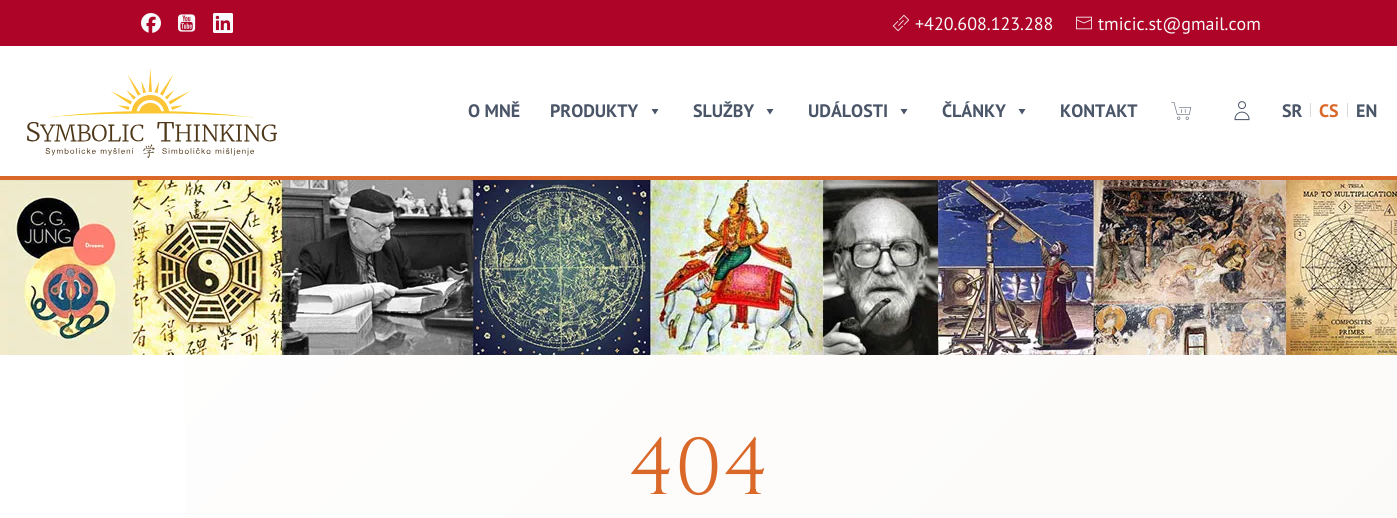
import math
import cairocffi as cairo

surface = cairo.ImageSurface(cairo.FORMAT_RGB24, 1397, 518)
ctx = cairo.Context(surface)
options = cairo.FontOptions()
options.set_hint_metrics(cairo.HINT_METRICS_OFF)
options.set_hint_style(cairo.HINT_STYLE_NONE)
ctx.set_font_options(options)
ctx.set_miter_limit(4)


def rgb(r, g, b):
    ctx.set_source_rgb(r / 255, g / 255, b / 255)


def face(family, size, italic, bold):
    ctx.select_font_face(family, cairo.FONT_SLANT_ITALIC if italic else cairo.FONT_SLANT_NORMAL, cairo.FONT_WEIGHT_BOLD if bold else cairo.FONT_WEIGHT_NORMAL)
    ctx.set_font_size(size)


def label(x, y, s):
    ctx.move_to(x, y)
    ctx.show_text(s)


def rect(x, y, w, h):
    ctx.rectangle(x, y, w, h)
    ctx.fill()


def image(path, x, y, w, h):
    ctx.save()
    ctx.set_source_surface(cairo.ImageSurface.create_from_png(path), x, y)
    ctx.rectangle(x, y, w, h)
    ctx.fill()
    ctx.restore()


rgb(255, 255, 255)
ctx.paint()
gradient = cairo.LinearGradient(-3.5, 3.5, 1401, 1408)
gradient.add_color_stop_rgba(0, 1, 1, 1, 1)
gradient.add_color_stop_rgba(1, 0.98, 0.973, 0.961, 1)
ctx.set_source(gradient)
rect(185, 355, 1212, 163)
rgb(173, 4, 39)
rect(0, 0, 1397, 46)
image('image0.png', 141, 13, 20, 20)
image('image1.png', 178, 14, 18, 18)
image('image2.png', 213, 13, 20, 20)
image('image3.png', 892, 14, 18, 18)
face('PT Sans', 18, 0, 0)
rgb(248, 249, 250)
label(915, 30, '+420.608.123.288')
image('image4.png', 1076, 16, 16, 14)
label(1098, 30, 'tmicic.st@gmail.com')
rgb(217, 104, 41)
rect(0, 176, 1397, 4)
image('image5.png', 27, 68, 250, 90)
face('PT Sans', 18, 0, 1)
rgb(74, 85, 104)
label(468, 117, 'O MNĚ')
label(550, 117, 'PRODUKTY')
ctx.new_path()
ctx.move_to(658.5, 109)
ctx.line_to(655, 114.5)
ctx.line_to(651.5, 109)
ctx.close_path()
ctx.fill()
label(693, 117, 'SLUŽBY')
ctx.new_path()
ctx.move_to(773.5, 109)
ctx.line_to(770, 114.5)
ctx.line_to(766.5, 109)
ctx.close_path()
ctx.fill()
label(808, 117, 'UDÁLOSTI')
ctx.new_path()
ctx.move_to(907.5, 109)
ctx.line_to(904, 114.5)
ctx.line_to(900.5, 109)
ctx.close_path()
ctx.fill()
label(942, 117, 'ČLÁNKY')
ctx.new_path()
ctx.move_to(1025.5, 109)
ctx.line_to(1022, 114.5)
ctx.line_to(1018.5, 109)
ctx.close_path()
ctx.fill()
label(1060, 117, 'KONTAKT')
image('image6.png', 1171, 102, 20, 18)
image('image7.png', 1234, 101, 16, 20)
label(1282, 117, 'SR')
rgb(217, 217, 217)
rect(1310, 103, 1, 14)
rgb(217, 104, 41)
label(1319, 117, 'CS')
rgb(217, 217, 217)
rect(1347, 103, 1, 14)
rgb(74, 85, 104)
label(1356, 117, 'EN')
image('image8.png', 0, 180, 1397, 175)
face('Cinzel', 80, 0, 0)
rgb(217, 104, 41)
label(628, 494, '404')
surface.write_to_png('render.png')
